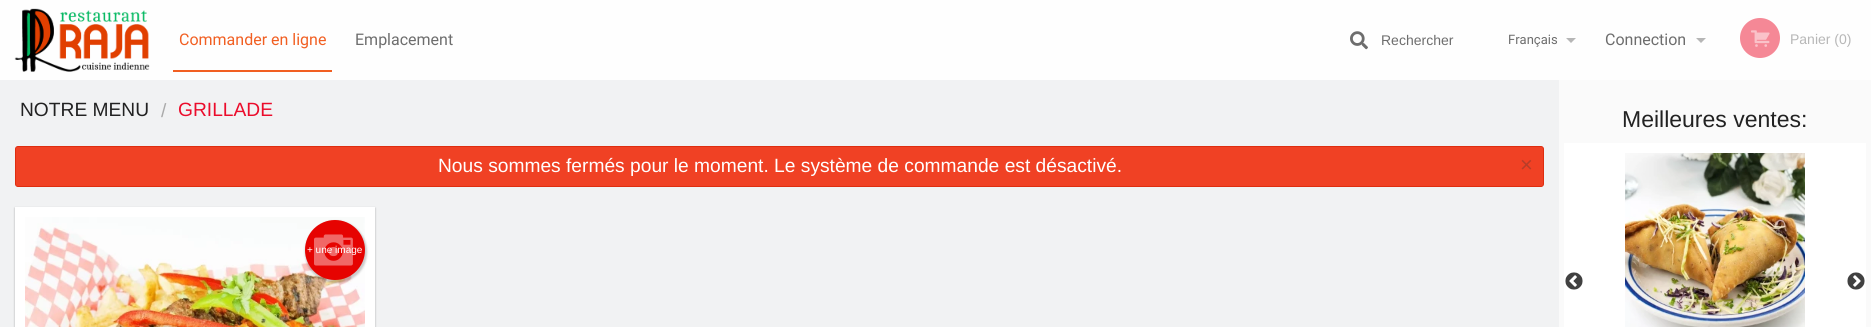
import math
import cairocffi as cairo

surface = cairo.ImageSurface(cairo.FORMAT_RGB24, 1871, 327)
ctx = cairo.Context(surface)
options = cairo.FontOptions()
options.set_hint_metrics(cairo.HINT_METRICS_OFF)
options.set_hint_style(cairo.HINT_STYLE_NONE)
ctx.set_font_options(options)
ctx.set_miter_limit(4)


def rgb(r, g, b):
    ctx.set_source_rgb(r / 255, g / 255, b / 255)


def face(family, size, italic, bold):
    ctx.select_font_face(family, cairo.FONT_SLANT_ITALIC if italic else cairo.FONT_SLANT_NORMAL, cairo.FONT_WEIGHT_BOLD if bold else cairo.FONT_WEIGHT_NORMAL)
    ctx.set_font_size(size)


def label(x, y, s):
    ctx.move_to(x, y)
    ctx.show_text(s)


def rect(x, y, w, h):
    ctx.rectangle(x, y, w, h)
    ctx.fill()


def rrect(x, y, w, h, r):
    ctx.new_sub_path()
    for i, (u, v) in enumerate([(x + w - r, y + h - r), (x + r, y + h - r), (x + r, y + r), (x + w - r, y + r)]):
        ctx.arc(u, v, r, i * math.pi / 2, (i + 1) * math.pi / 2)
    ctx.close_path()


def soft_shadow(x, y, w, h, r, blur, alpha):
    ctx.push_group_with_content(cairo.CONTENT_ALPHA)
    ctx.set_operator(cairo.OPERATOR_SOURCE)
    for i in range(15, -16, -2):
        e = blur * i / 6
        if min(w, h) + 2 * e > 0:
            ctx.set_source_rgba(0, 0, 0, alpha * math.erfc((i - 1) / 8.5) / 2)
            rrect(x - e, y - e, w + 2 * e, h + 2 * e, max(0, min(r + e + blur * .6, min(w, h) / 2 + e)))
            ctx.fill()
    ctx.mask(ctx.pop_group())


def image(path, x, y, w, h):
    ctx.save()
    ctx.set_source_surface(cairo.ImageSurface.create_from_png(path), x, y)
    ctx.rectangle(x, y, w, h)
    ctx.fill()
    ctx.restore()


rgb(241, 242, 243)
ctx.paint()
rgb(254, 254, 254)
rect(0, 0, 1871, 80)
image('image0.png', 14, 8, 136, 64)
face('Roboto', 16, 0, 0)
rgb(241, 95, 34)
label(179, 45, 'Commander en ligne')
rect(173, 70, 159, 2)
rgb(109, 109, 109)
label(355, 45, 'Emplacement')
image('image1.png', 1350, 31, 18, 19)
face('Liberation Sans', 14, 0, 0)
label(1381, 45, 'Rechercher')
face('Roboto', 13, 0, 0)
label(1508, 44, 'Français')
rgb(182, 182, 182)
ctx.new_path()
ctx.move_to(1566, 38)
ctx.line_to(1576, 38)
ctx.line_to(1571, 43)
ctx.close_path()
ctx.fill()
face('Roboto', 16, 0, 0)
rgb(109, 109, 109)
label(1605, 45, 'Connection')
rgb(182, 182, 182)
ctx.new_path()
ctx.move_to(1696, 38)
ctx.line_to(1706, 38)
ctx.line_to(1701, 43)
ctx.close_path()
ctx.fill()
rgb(245, 136, 150)
ctx.arc(1760, 38, 20, 0, 2 * math.pi)
ctx.fill()
image('image2.png', 1751, 30, 19, 17)
face('Liberation Sans', 14, 0, 0)
rgb(183, 183, 183)
label(1790, 44, 'Panier (0)')
face('Liberation Sans', 19.2, 0, 0)
rgb(34, 34, 34)
label(20, 116, 'NOTRE MENU')
rgb(170, 170, 170)
label(161, 117, '/')
rgb(235, 12, 43)
label(178, 116, 'GRILLADE')
rgb(240, 65, 36)
rrect(15.5, 146.5, 1528, 40, 2.5)
ctx.fill_preserve()
rgb(222, 45, 15)
ctx.set_line_width(1)
ctx.stroke()
rgb(255, 255, 255)
label(438, 172, 'Nous sommes fermés pour le moment. Le système de commande est désactivé.')
face('Liberation Sans', 22, 0, 0)
rgb(183, 61, 41)
label(1520, 172, '×')
rgb(0, 0, 0)
soft_shadow(15, 208, 360, 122, 0, 1, 0.3)
rgb(255, 255, 255)
rect(15, 207, 360, 120)
image('image3.png', 25, 217, 340, 110)
rgb(0, 0, 0)
soft_shadow(305, 221, 62, 62, 31, 1, 0.2)
rgb(230, 3, 1)
ctx.arc(335, 250, 30, 0, 2 * math.pi)
ctx.fill()
image('image4.png', 314, 234, 39, 32)
face('Liberation Sans', 10, 0, 0)
rgb(255, 255, 255)
label(307, 253, '+ une image')
rgb(250, 250, 250)
rect(1559, 80, 312, 247)
face('Liberation Sans', 23, 0, 0)
rgb(34, 34, 34)
label(1622, 127, 'Meilleures ventes:')
rgb(255, 255, 255)
rect(1564, 143, 302, 184)
image('image5.png', 1625, 153, 180, 174)
image('image6.png', 1565, 272, 18, 18)
image('image7.png', 1847, 272, 18, 18)
surface.write_to_png('render.png')
